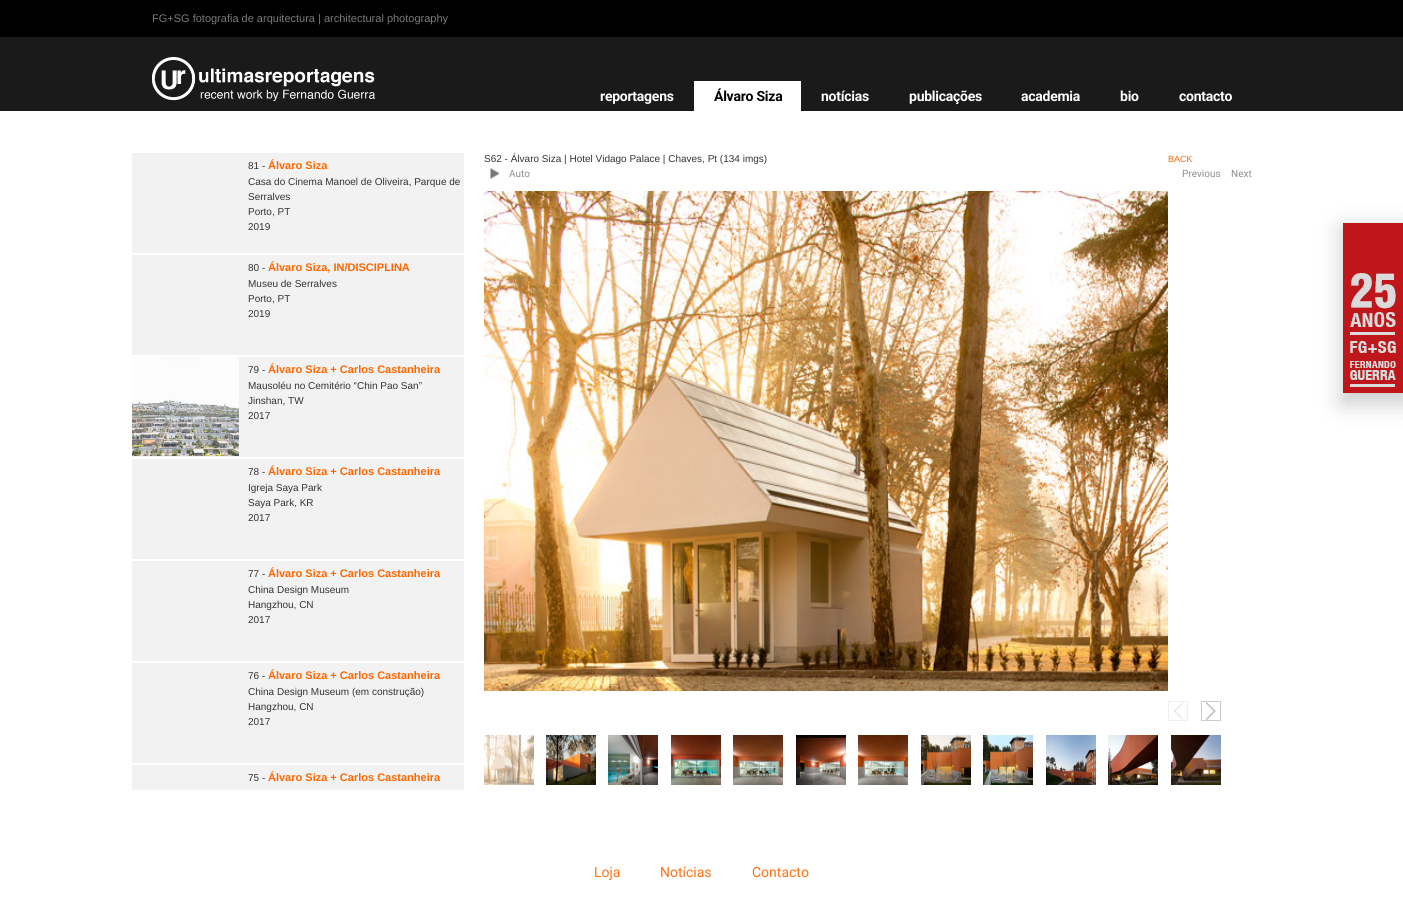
import math
import cairocffi as cairo

surface = cairo.ImageSurface(cairo.FORMAT_RGB24, 1403, 921)
ctx = cairo.Context(surface)
options = cairo.FontOptions()
options.set_hint_metrics(cairo.HINT_METRICS_OFF)
options.set_hint_style(cairo.HINT_STYLE_NONE)
ctx.set_font_options(options)
ctx.set_miter_limit(4)


def rgb(r, g, b):
    ctx.set_source_rgb(r / 255, g / 255, b / 255)


def face(family, size, italic, bold):
    ctx.select_font_face(family, cairo.FONT_SLANT_ITALIC if italic else cairo.FONT_SLANT_NORMAL, cairo.FONT_WEIGHT_BOLD if bold else cairo.FONT_WEIGHT_NORMAL)
    ctx.set_font_size(size)


def label(x, y, s):
    ctx.move_to(x, y)
    ctx.show_text(s)


def tracked(x, y, s, letter, word):
    ctx.move_to(x, y)
    for ch in s:
        ctx.show_text(ch)
        ctx.rel_move_to(letter + word * (ch == ' '), 0)


def rect(x, y, w, h):
    ctx.rectangle(x, y, w, h)
    ctx.fill()


def rrect(x, y, w, h, r):
    ctx.new_sub_path()
    for i, (u, v) in enumerate([(x + w - r, y + h - r), (x + r, y + h - r), (x + r, y + r), (x + w - r, y + r)]):
        ctx.arc(u, v, r, i * math.pi / 2, (i + 1) * math.pi / 2)
    ctx.close_path()


def soft_shadow(x, y, w, h, r, blur, alpha):
    ctx.push_group_with_content(cairo.CONTENT_ALPHA)
    ctx.set_operator(cairo.OPERATOR_SOURCE)
    for i in range(15, -16, -2):
        e = blur * i / 6
        if min(w, h) + 2 * e > 0:
            ctx.set_source_rgba(0, 0, 0, alpha * math.erfc((i - 1) / 8.5) / 2)
            rrect(x - e, y - e, w + 2 * e, h + 2 * e, max(0, min(r + e + blur * .6, min(w, h) / 2 + e)))
            ctx.fill()
    ctx.mask(ctx.pop_group())


def image(path, x, y, w, h):
    ctx.save()
    ctx.set_source_surface(cairo.ImageSurface.create_from_png(path), x, y)
    ctx.rectangle(x, y, w, h)
    ctx.fill()
    ctx.restore()


rgb(255, 255, 255)
ctx.paint()
rgb(0, 0, 0)
rect(0, 0, 1403, 37)
face('Liberation Sans', 11, 0, 0)
rgb(122, 122, 122)
label(152, 22, 'FG+SG fotografia de arquitectura | architectural photography')
rgb(26, 26, 26)
rect(0, 37, 1403, 74)
image('image0.png', 152, 57, 223, 44)
face('Roboto', 14, 0, 1)
rgb(255, 255, 255)
tracked(600, 101, 'reportagens', -0.25, 0)
rect(694, 81, 107, 30)
rgb(0, 0, 0)
tracked(714, 101, 'Álvaro Siza', -0.25, 0)
rgb(255, 255, 255)
tracked(821, 101, 'notícias', -0.25, 0)
tracked(909, 101, 'publicações', -0.25, 0)
tracked(1021, 101, 'academia', -0.25, 0)
tracked(1120, 101, 'bio', -0.25, 0)
tracked(1179, 101, 'contacto', -0.25, 0)
rgb(242, 242, 242)
rect(132, 153, 332, 100)
face('Liberation Sans', 10, 0, 0)
rgb(51, 51, 51)
label(248, 169, '81 -')
face('Liberation Sans', 11, 0, 1)
rgb(255, 102, 0)
label(268, 169, 'Álvaro Siza')
face('Liberation Sans', 10, 0, 0)
rgb(51, 51, 51)
label(248, 185, 'Casa do Cinema Manoel de Oliveira, Parque de')
label(248, 200, 'Serralves')
label(248, 215, 'Porto, PT')
label(248, 230, '2019')
rgb(242, 242, 242)
rect(132, 255, 332, 100)
rgb(51, 51, 51)
label(248, 271, '80 -')
face('Liberation Sans', 11, 0, 1)
rgb(255, 102, 0)
label(268, 271, 'Álvaro Siza, IN/DISCIPLINA')
face('Liberation Sans', 10, 0, 0)
rgb(51, 51, 51)
label(248, 287, 'Museu de Serralves')
label(248, 302, 'Porto, PT')
label(248, 317, '2019')
rgb(242, 242, 242)
rect(132, 357, 332, 100)
image('image1.png', 132, 357, 107, 99)
rgb(51, 51, 51)
label(248, 373, '79 -')
face('Liberation Sans', 11, 0, 1)
rgb(255, 102, 0)
label(268, 373, 'Álvaro Siza + Carlos Castanheira')
face('Liberation Sans', 10, 0, 0)
rgb(51, 51, 51)
label(248, 389, 'Mausoléu no Cemitério “Chin Pao San”')
label(248, 404, 'Jinshan, TW')
label(248, 419, '2017')
rgb(242, 242, 242)
rect(132, 459, 332, 100)
rgb(51, 51, 51)
label(248, 475, '78 -')
face('Liberation Sans', 11, 0, 1)
rgb(255, 102, 0)
label(268, 475, 'Álvaro Siza + Carlos Castanheira')
face('Liberation Sans', 10, 0, 0)
rgb(51, 51, 51)
label(248, 491, 'Igreja Saya Park')
label(248, 506, 'Saya Park, KR')
label(248, 521, '2017')
rgb(242, 242, 242)
rect(132, 561, 332, 100)
rgb(51, 51, 51)
label(248, 577, '77 -')
face('Liberation Sans', 11, 0, 1)
rgb(255, 102, 0)
label(268, 577, 'Álvaro Siza + Carlos Castanheira')
face('Liberation Sans', 10, 0, 0)
rgb(51, 51, 51)
label(248, 593, 'China Design Museum')
label(248, 608, 'Hangzhou, CN')
label(248, 623, '2017')
rgb(242, 242, 242)
rect(132, 663, 332, 100)
rgb(51, 51, 51)
label(248, 679, '76 -')
face('Liberation Sans', 11, 0, 1)
rgb(255, 102, 0)
label(268, 679, 'Álvaro Siza + Carlos Castanheira')
face('Liberation Sans', 10, 0, 0)
rgb(51, 51, 51)
label(248, 695, 'China Design Museum (em construção)')
label(248, 710, 'Hangzhou, CN')
label(248, 725, '2017')
rgb(242, 242, 242)
rect(132, 765, 332, 25)
rgb(51, 51, 51)
label(248, 781, '75 -')
face('Liberation Sans', 11, 0, 1)
rgb(255, 102, 0)
label(268, 781, 'Álvaro Siza + Carlos Castanheira')
face('Liberation Sans', 10, 0, 0)
rgb(51, 51, 51)
label(484, 162, 'S62 - Álvaro Siza | Hotel Vidago Palace | Chaves, Pt (134 imgs)')
face('Liberation Sans', 9, 0, 0)
rgb(255, 102, 0)
label(1168, 162, 'BACK')
image('image2.png', 490, 168, 10, 11)
face('Roboto', 10, 0, 0)
rgb(142, 142, 142)
label(509, 177, 'Auto')
label(1182, 177, 'Previous')
label(1231, 177, 'Next')
image('image3.png', 484, 191, 684, 500)
image('image4.png', 1174, 702, 10, 18)
ctx.rectangle(1168.5, 701.5, 19, 19)
rgb(240, 240, 240)
ctx.set_line_width(1)
ctx.stroke()
image('image5.png', 1205, 702, 11, 18)
ctx.rectangle(1201.5, 701.5, 19, 19)
rgb(204, 204, 204)
ctx.stroke()
image('image6.png', 484, 735, 50, 50)
image('image7.png', 546, 735, 50, 50)
image('image8.png', 608, 735, 50, 50)
image('image9.png', 671, 735, 50, 50)
image('image10.png', 733, 735, 50, 50)
image('image11.png', 796, 735, 50, 50)
image('image12.png', 858, 735, 50, 50)
image('image13.png', 921, 735, 50, 50)
image('image14.png', 983, 735, 50, 50)
image('image15.png', 1046, 735, 50, 50)
image('image16.png', 1108, 735, 50, 50)
image('image17.png', 1171, 735, 50, 50)
rgb(0, 0, 0)
soft_shadow(1342, 228, 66, 176, 0, 11.5, 0.2)
image('image18.png', 1343, 223, 60, 170)
face('Roboto', 14, 0, 0)
rgb(255, 115, 22)
label(594, 877, 'Loja')
label(660, 877, 'Notícias')
label(752, 877, 'Contacto')
surface.write_to_png('render.png')
